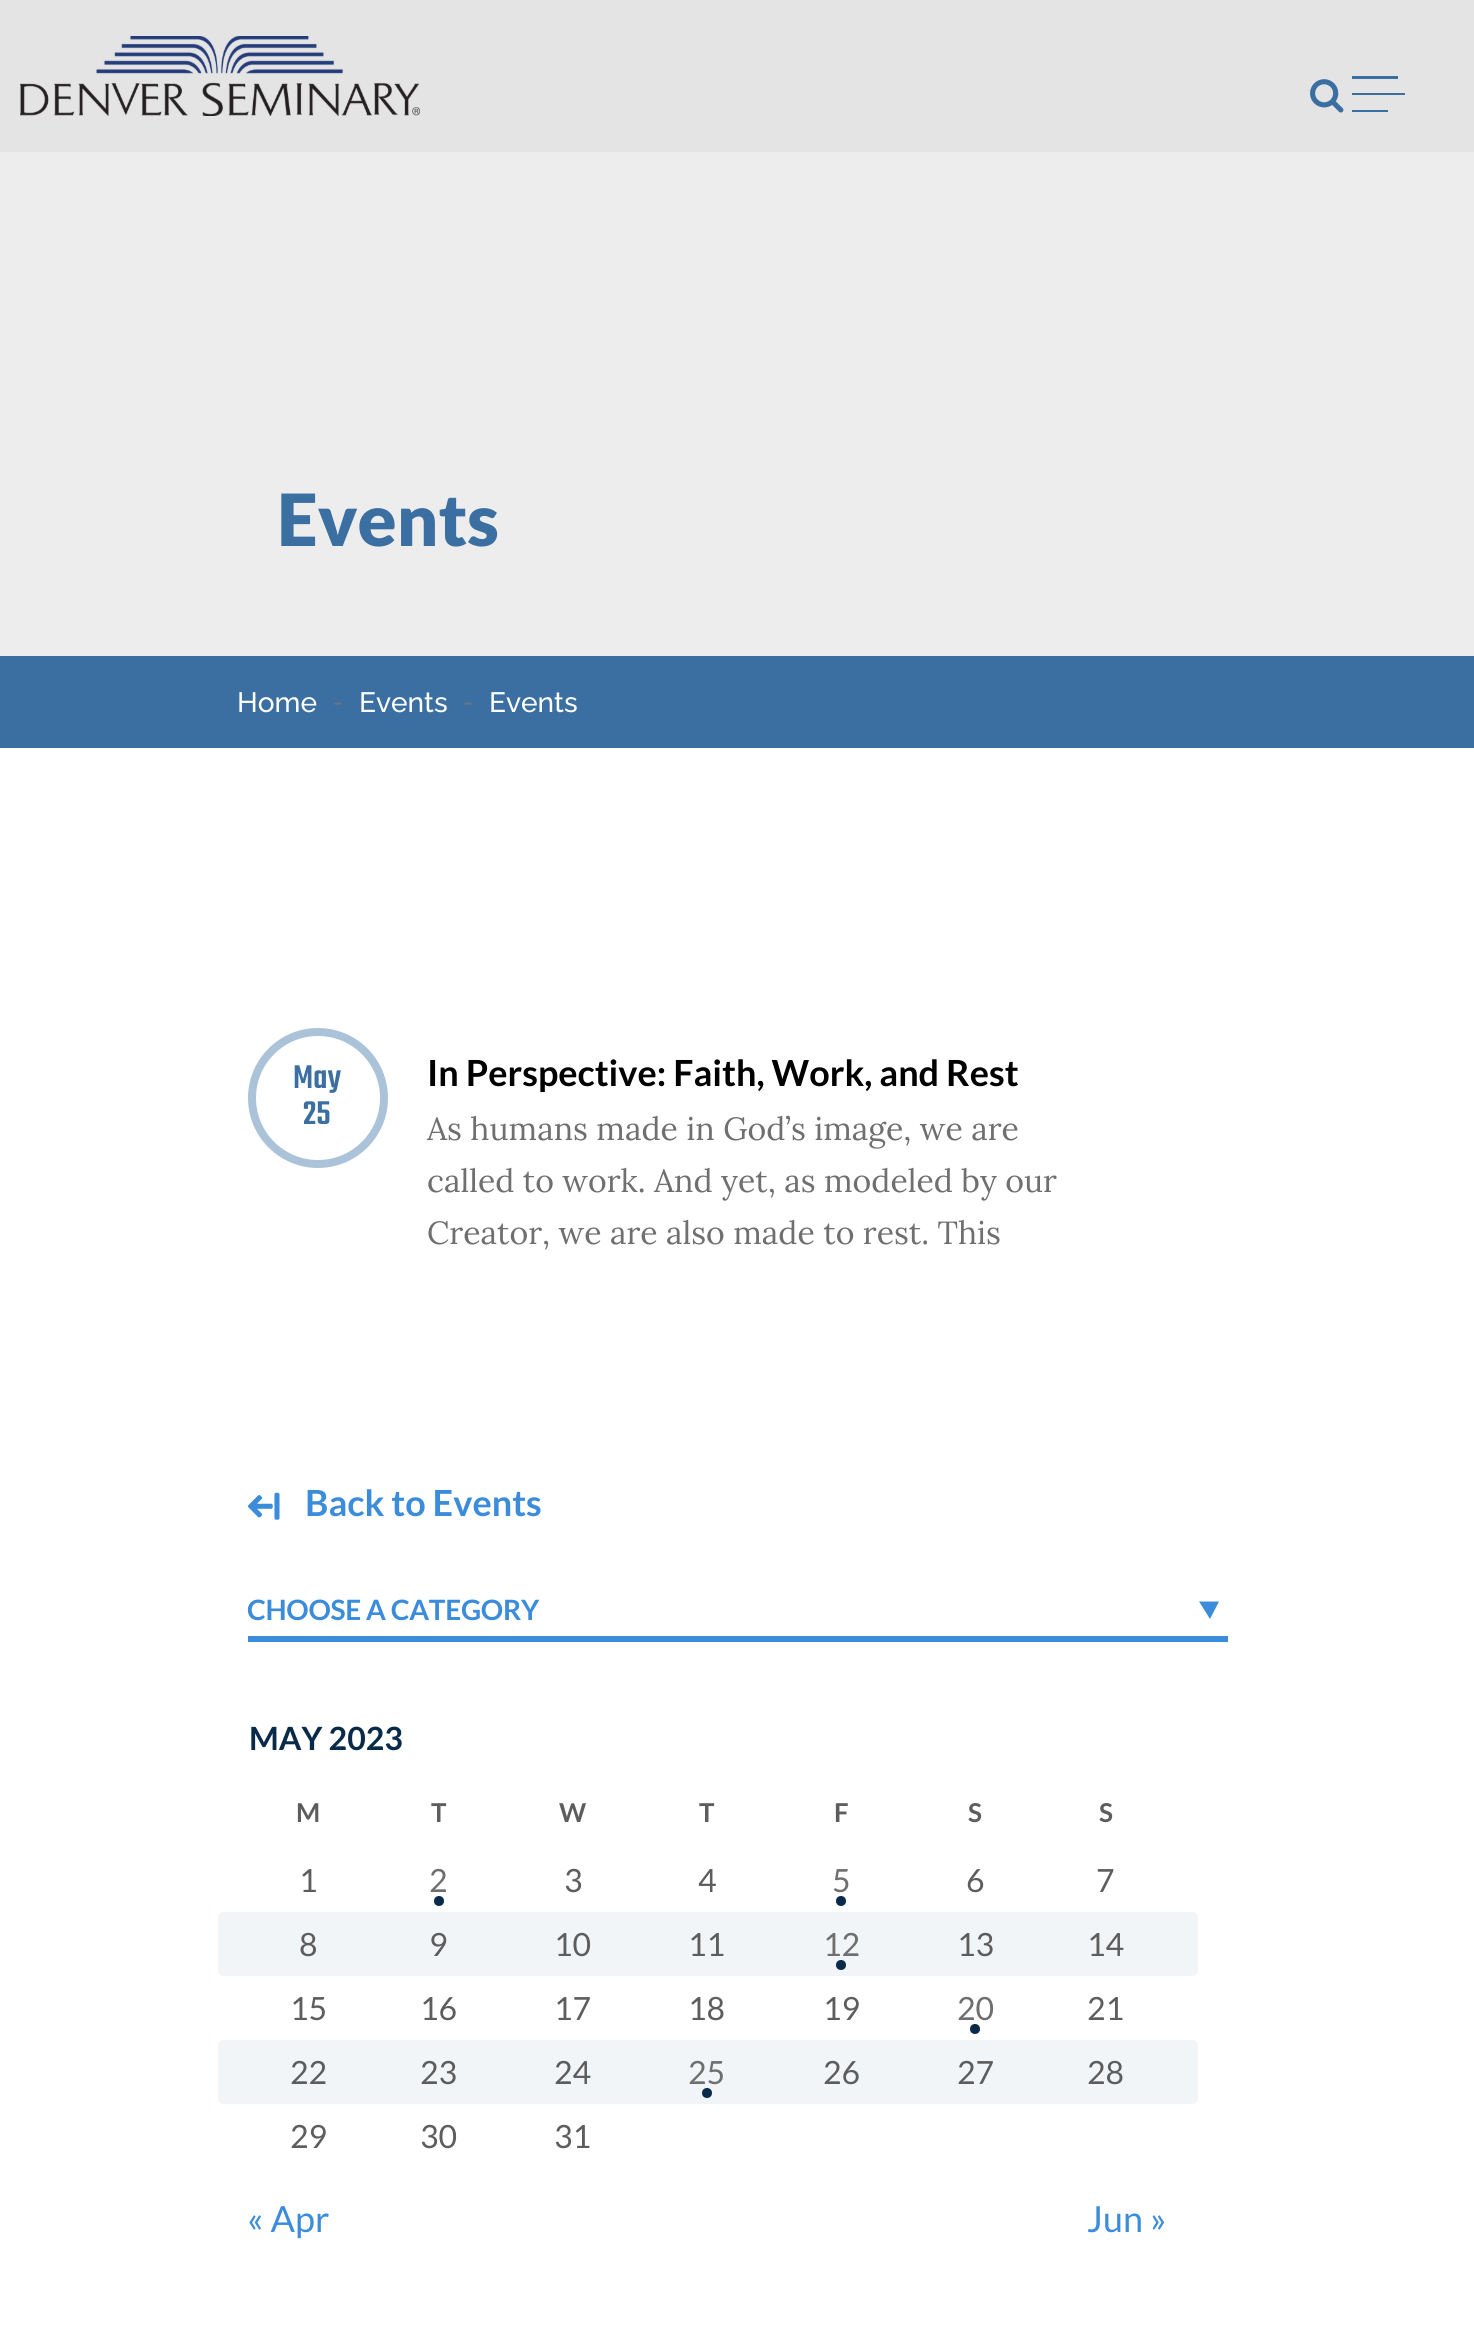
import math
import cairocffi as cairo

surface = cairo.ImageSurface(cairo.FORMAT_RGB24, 1474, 2325)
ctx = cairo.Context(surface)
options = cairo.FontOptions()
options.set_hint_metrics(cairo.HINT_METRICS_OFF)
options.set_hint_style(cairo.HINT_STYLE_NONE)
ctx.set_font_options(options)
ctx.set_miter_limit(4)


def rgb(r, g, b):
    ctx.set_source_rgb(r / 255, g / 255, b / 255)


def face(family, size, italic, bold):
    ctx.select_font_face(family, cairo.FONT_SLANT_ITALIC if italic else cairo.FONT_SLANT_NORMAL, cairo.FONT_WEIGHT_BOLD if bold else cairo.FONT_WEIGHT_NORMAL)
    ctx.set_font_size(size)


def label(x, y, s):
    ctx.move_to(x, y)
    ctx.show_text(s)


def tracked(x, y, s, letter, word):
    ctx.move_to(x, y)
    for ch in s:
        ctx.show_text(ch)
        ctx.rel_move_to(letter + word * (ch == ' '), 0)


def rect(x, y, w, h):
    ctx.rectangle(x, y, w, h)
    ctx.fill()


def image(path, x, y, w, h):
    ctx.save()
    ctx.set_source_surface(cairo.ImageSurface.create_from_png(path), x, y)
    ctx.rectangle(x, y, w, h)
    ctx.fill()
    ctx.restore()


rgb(255, 255, 255)
ctx.paint()
rgb(228, 228, 228)
rect(0, 0, 1474, 152)
image('image0.png', 20, 36, 400, 80)
image('image1.png', 1310, 79, 34, 34)
rgb(60, 111, 161)
ctx.new_path()
ctx.move_to(1352, 76)
ctx.line_to(1398, 76)
ctx.line_to(1398, 79)
ctx.line_to(1352, 79)
ctx.close_path()
ctx.move_to(1352, 110)
ctx.line_to(1388, 110)
ctx.line_to(1388, 112)
ctx.line_to(1352, 112)
ctx.close_path()
ctx.move_to(1352, 93)
ctx.line_to(1405, 93)
ctx.line_to(1405, 95)
ctx.line_to(1352, 95)
ctx.close_path()
ctx.fill()
rgb(237, 237, 237)
rect(0, 152, 1474, 504)
face('Lato Black', 72, 0, 0)
rgb(60, 111, 161)
label(277, 546, 'Events')
rect(0, 656, 1474, 92)
face('Raleway Thin', 28, 0, 0)
rgb(255, 255, 255)
label(237, 712, 'Home')
face('Lato', 28, 0, 0)
rgb(108, 117, 125)
label(333, 712, '-')
face('Raleway Thin', 28, 0, 0)
rgb(255, 255, 255)
label(359, 712, 'Events')
face('Lato', 28, 0, 0)
rgb(108, 117, 125)
label(463, 712, '-')
face('Raleway Thin', 28, 0, 0)
rgb(255, 255, 255)
label(489, 712, 'Events')
ctx.new_path()
ctx.arc(318, 1098, 66, 0, 2 * math.pi)
rgb(171, 195, 217)
ctx.set_line_width(8)
ctx.stroke()
face('Teko Light', 36, 0, 0)
rgb(60, 111, 161)
label(293, 1088, 'May')
label(303, 1124, '25')
face('Lato', 36, 0, 1)
rgb(0, 0, 0)
label(427, 1086, 'In Perspective: Faith, Work, and Rest')
face('Lora', 32, 0, 0)
rgb(111, 111, 111)
label(427, 1140, 'As humans made in God’s image, we are')
label(427, 1192, 'called to work. And yet, as modeled by our')
label(427, 1244, 'Creator, we are also made to rest. This')
image('image2.png', 248, 1492, 32, 28)
face('Lato', 36, 0, 1)
rgb(59, 140, 219)
label(305, 1516, 'Back to Events')
rect(248, 1636, 980, 6)
face('Lato', 28, 0, 1)
tracked(247, 1620, 'CHOOSE A CATEGORY', -0.3, 0)
ctx.new_path()
ctx.move_to(1219, 1601.5)
ctx.line_to(1210, 1619)
ctx.line_to(1199, 1601.5)
ctx.close_path()
ctx.fill()
face('Lato', 32, 0, 1)
rgb(10, 42, 74)
label(249, 1750, 'MAY 2023')
face('Lato', 26, 0, 1)
rgb(93, 93, 93)
label(296, 1822, 'M')
label(431, 1822, 'T')
label(559, 1822, 'W')
label(699, 1822, 'T')
label(834, 1822, 'F')
label(968, 1822, 'S')
label(1099, 1822, 'S')
face('Lato', 32, 0, 0)
label(299, 1892, '1')
rgb(111, 111, 111)
label(429, 1892, '2')
rgb(10, 42, 74)
ctx.new_path()
ctx.arc(439, 1901, 5, 0, 2 * math.pi)
ctx.fill()
rgb(93, 93, 93)
label(564, 1892, '3')
label(698, 1892, '4')
rgb(111, 111, 111)
label(832, 1892, '5')
rgb(10, 42, 74)
ctx.new_path()
ctx.arc(841, 1901, 5, 0, 2 * math.pi)
ctx.fill()
rgb(93, 93, 93)
label(966, 1892, '6')
label(1096, 1892, '7')
rgb(242, 245, 248)
ctx.new_path()
ctx.move_to(224, 1912)
ctx.line_to(372, 1912)
ctx.line_to(372, 1976)
ctx.line_to(224, 1976)
ctx.curve_to(220.5, 1976, 218, 1973.5, 218, 1970)
ctx.line_to(218, 1918)
ctx.curve_to(218, 1914.5, 220.5, 1912, 224, 1912)
ctx.close_path()
ctx.fill()
rgb(93, 93, 93)
label(299, 1956, '8')
rgb(242, 245, 248)
rect(372, 1912, 670, 64)
rgb(93, 93, 93)
label(429, 1956, '9')
label(554, 1956, '10')
label(688, 1956, '11')
rgb(111, 111, 111)
label(823, 1956, '12')
rgb(10, 42, 74)
ctx.new_path()
ctx.arc(841, 1965, 5, 0, 2 * math.pi)
ctx.fill()
rgb(93, 93, 93)
label(957, 1956, '13')
rgb(242, 245, 248)
ctx.new_path()
ctx.move_to(1042, 1912)
ctx.line_to(1192, 1912)
ctx.curve_to(1195.5, 1912, 1198, 1914.5, 1198, 1918)
ctx.line_to(1198, 1970)
ctx.curve_to(1198, 1973.5, 1195.5, 1976, 1192, 1976)
ctx.line_to(1042, 1976)
ctx.close_path()
ctx.fill()
rgb(93, 93, 93)
label(1087, 1956, '14')
label(290, 2020, '15')
label(420, 2020, '16')
label(554, 2020, '17')
label(688, 2020, '18')
label(823, 2020, '19')
rgb(111, 111, 111)
label(957, 2020, '20')
rgb(10, 42, 74)
ctx.new_path()
ctx.arc(975, 2029, 5, 0, 2 * math.pi)
ctx.fill()
rgb(93, 93, 93)
label(1087, 2020, '21')
rgb(242, 245, 248)
ctx.new_path()
ctx.move_to(224, 2040)
ctx.line_to(372, 2040)
ctx.line_to(372, 2104)
ctx.line_to(224, 2104)
ctx.curve_to(220.5, 2104, 218, 2101.5, 218, 2098)
ctx.line_to(218, 2046)
ctx.curve_to(218, 2042.5, 220.5, 2040, 224, 2040)
ctx.close_path()
ctx.fill()
rgb(93, 93, 93)
label(290, 2084, '22')
rgb(242, 245, 248)
rect(372, 2040, 670, 64)
rgb(93, 93, 93)
label(420, 2084, '23')
label(554, 2084, '24')
rgb(111, 111, 111)
label(688, 2084, '25')
rgb(10, 42, 74)
ctx.new_path()
ctx.arc(707, 2093, 5, 0, 2 * math.pi)
ctx.fill()
rgb(93, 93, 93)
label(823, 2084, '26')
label(957, 2084, '27')
rgb(242, 245, 248)
ctx.new_path()
ctx.move_to(1042, 2040)
ctx.line_to(1192, 2040)
ctx.curve_to(1195.5, 2040, 1198, 2042.5, 1198, 2046)
ctx.line_to(1198, 2098)
ctx.curve_to(1198, 2101.5, 1195.5, 2104, 1192, 2104)
ctx.line_to(1042, 2104)
ctx.close_path()
ctx.fill()
rgb(93, 93, 93)
label(1087, 2084, '28')
label(290, 2148, '29')
label(420, 2148, '30')
label(554, 2148, '31')
face('Lato', 36, 0, 0)
rgb(59, 140, 219)
label(247, 2232, '« Apr')
label(1087, 2232, 'Jun »')
surface.write_to_png('render.png')
